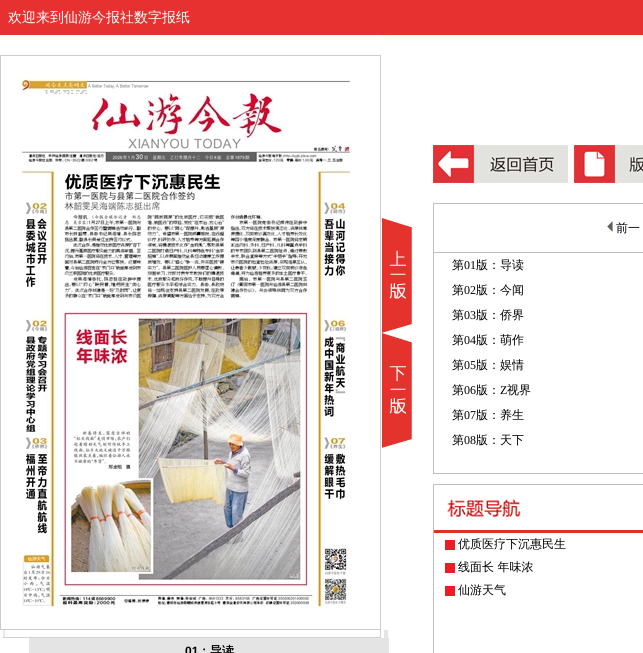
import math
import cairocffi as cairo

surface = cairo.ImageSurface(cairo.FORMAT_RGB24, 643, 653)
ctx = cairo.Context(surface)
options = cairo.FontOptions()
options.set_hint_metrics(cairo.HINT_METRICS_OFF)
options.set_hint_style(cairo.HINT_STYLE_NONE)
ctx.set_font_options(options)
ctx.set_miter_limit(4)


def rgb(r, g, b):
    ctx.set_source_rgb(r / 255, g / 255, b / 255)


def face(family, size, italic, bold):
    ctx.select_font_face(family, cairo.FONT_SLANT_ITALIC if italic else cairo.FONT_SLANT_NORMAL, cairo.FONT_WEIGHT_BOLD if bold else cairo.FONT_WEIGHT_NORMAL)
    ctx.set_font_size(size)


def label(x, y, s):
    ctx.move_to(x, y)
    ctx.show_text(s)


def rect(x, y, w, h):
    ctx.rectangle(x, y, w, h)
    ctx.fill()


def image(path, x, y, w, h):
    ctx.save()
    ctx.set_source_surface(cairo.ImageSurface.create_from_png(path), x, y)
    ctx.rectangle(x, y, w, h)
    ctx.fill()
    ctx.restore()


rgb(255, 255, 255)
ctx.paint()
image('image0.png', 0, 0, 643, 39)
face('WenQuanYi Zen Hei Medium', 14, 0, 0)
rgb(255, 255, 255)
label(8, 22, '欢迎来到仙游今报社数字报纸')
image('image1.png', 433, 145, 135, 38)
image('image2.png', 574, 145, 69, 38)
ctx.rectangle(433.5, 203.5, 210, 270)
rgb(192, 192, 192)
ctx.set_line_width(1)
ctx.stroke()
image('image3.png', 607, 221, 6, 11)
face('WenQuanYi Zen Hei Medium', 12, 0, 0)
rgb(0, 0, 0)
label(616, 232, '前一')
rgb(192, 192, 192)
rect(434, 252, 209, 1)
rgb(0, 0, 0)
label(452, 269, '第')
face('Liberation Serif', 12, 0, 0)
label(464, 269, '01')
face('WenQuanYi Zen Hei Medium', 12, 0, 0)
label(476, 269, '版：导读')
label(452, 294, '第')
face('Liberation Serif', 12, 0, 0)
label(464, 294, '02')
face('WenQuanYi Zen Hei Medium', 12, 0, 0)
label(476, 294, '版：今闻')
label(452, 319, '第')
face('Liberation Serif', 12, 0, 0)
label(464, 319, '03')
face('WenQuanYi Zen Hei Medium', 12, 0, 0)
label(476, 319, '版：侨界')
label(452, 344, '第')
face('Liberation Serif', 12, 0, 0)
label(464, 344, '04')
face('WenQuanYi Zen Hei Medium', 12, 0, 0)
label(476, 344, '版：萌作')
label(452, 369, '第')
face('Liberation Serif', 12, 0, 0)
label(464, 369, '05')
face('WenQuanYi Zen Hei Medium', 12, 0, 0)
label(476, 369, '版：娱情')
label(452, 394, '第')
face('Liberation Serif', 12, 0, 0)
label(464, 394, '06')
face('WenQuanYi Zen Hei Medium', 12, 0, 0)
label(476, 394, '版：')
face('Liberation Serif', 12, 0, 0)
label(500, 394, 'Z')
face('WenQuanYi Zen Hei Medium', 12, 0, 0)
label(507, 394, '视界')
label(452, 419, '第')
face('Liberation Serif', 12, 0, 0)
label(464, 419, '07')
face('WenQuanYi Zen Hei Medium', 12, 0, 0)
label(476, 419, '版：养生')
label(452, 444, '第')
face('Liberation Serif', 12, 0, 0)
label(464, 444, '08')
face('WenQuanYi Zen Hei Medium', 12, 0, 0)
label(476, 444, '版：天下')
ctx.rectangle(433.5, 484.5, 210, 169)
rgb(192, 192, 192)
ctx.stroke()
image('image4.png', 434, 499, 209, 34)
rgb(237, 28, 36)
rect(445, 540, 10, 10)
rgb(0, 0, 0)
label(458, 548, '优质医疗下沉惠民生')
rgb(237, 28, 36)
rect(445, 563, 10, 10)
rgb(0, 0, 0)
label(458, 571, '线面长 年味浓')
rgb(237, 28, 36)
rect(445, 586, 10, 10)
rgb(0, 0, 0)
label(458, 594, '仙游天气')
rgb(255, 255, 255)
rect(0, 35, 381, 4)
image('image5.png', 382, 218, 30, 115)
image('image6.png', 382, 333, 30, 115)
ctx.rectangle(0.5, 55.5, 380, 574)
rgb(204, 204, 204)
ctx.stroke()
image('image7.png', 20, 78, 331, 530)
image('image8.png', 2, 630, 379, 8)
rgb(229, 229, 229)
rect(384, 630, 4, 8)
rgb(228, 228, 228)
rect(29, 638, 360, 15)
face('Liberation Sans', 12, 0, 1)
rgb(0, 0, 0)
label(185, 655, '01')
face('WenQuanYi Zen Hei', 12, 0, 1)
label(198, 655, '：导读')
surface.write_to_png('render.png')
